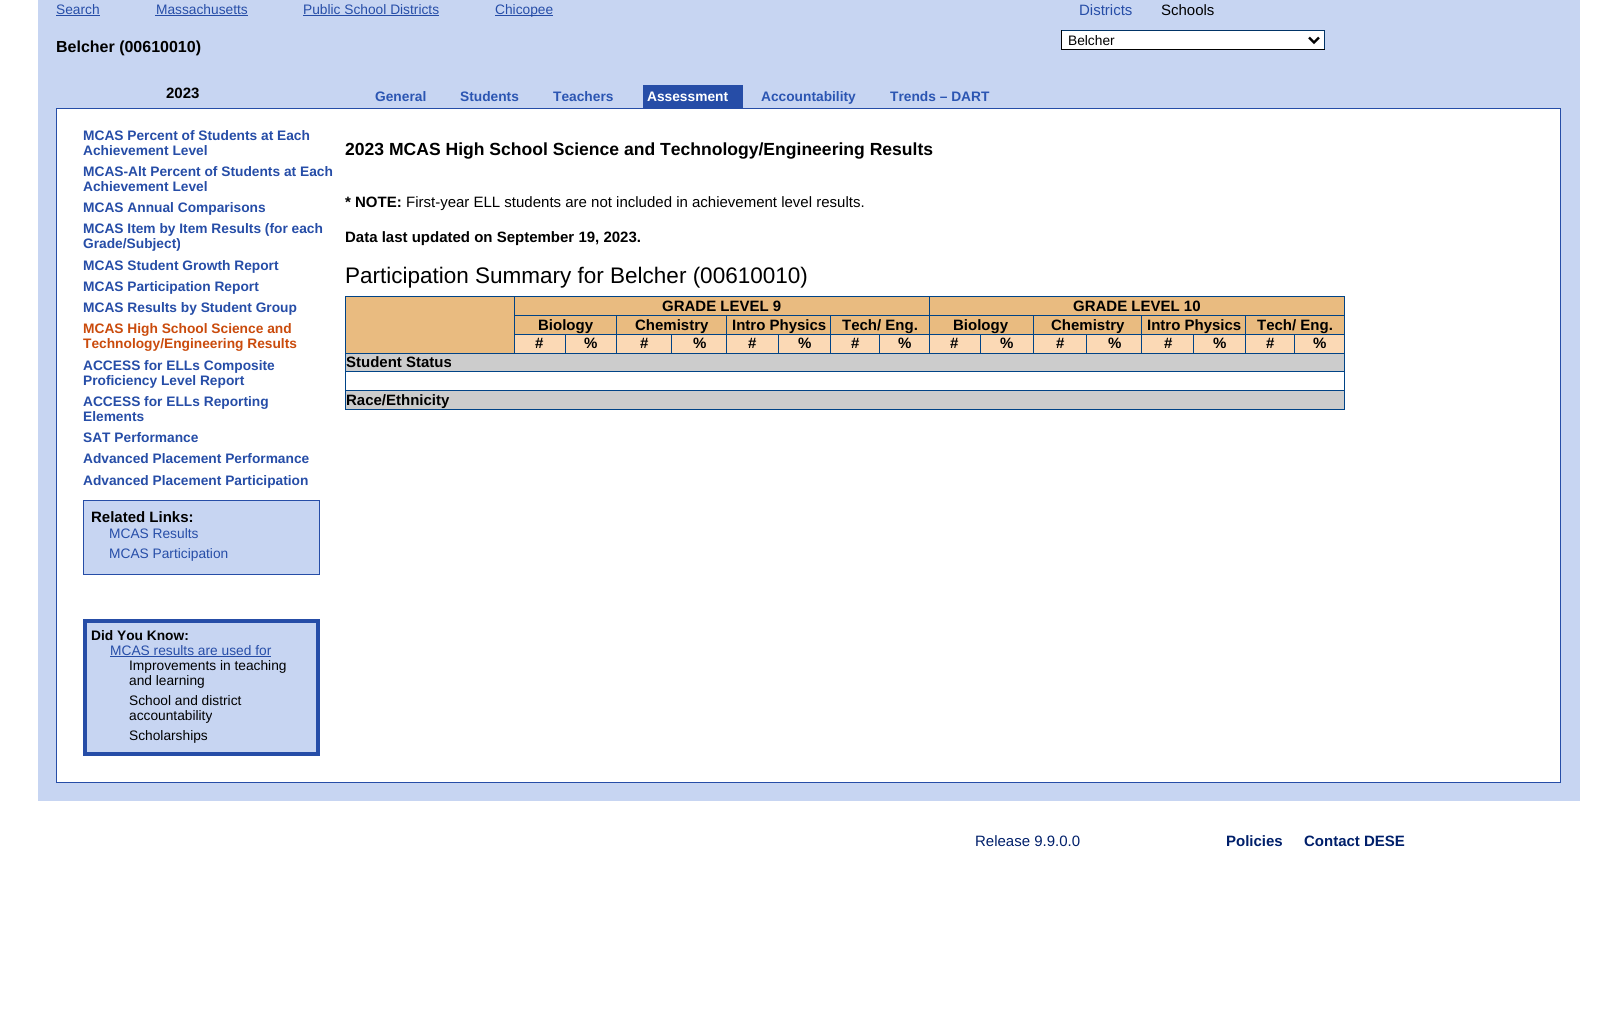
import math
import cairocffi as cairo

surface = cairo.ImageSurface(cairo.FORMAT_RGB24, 1617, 1020)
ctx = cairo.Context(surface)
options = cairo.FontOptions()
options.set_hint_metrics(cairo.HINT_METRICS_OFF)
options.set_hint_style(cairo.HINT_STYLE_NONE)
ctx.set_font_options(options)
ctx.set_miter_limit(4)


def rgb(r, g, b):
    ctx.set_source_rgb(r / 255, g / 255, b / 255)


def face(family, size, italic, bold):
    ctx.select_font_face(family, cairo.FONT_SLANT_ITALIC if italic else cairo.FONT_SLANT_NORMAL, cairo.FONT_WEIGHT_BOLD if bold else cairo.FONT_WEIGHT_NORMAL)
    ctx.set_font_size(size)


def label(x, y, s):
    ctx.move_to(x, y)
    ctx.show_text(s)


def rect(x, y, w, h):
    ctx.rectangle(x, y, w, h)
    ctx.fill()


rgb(255, 255, 255)
ctx.paint()
rgb(199, 213, 242)
rect(38, 0, 1542, 801)
face('Liberation Sans', 13.75, 0, 0)
rgb(38, 77, 167)
label(56, 14, 'Search')
rect(56, 15, 44, 1)
label(156, 14, 'Massachusetts')
rect(155, 15, 93, 1)
label(303, 14, 'Public School Districts')
rect(303, 15, 136, 1)
rect(495, 15, 58, 1)
label(495, 14, 'Chicopee')
face('Liberation Sans', 16, 0, 1)
rgb(0, 0, 0)
label(56, 52, 'Belcher (00610010)')
face('Liberation Sans', 15, 0, 0)
rgb(38, 77, 167)
label(1079, 15, 'Districts')
rgb(0, 0, 0)
label(1161, 15, 'Schools')
rgb(255, 255, 255)
rect(1062, 31, 262, 18)
rgb(0, 51, 102)
rect(1061, 30, 264, 1)
rect(1324, 30, 1, 20)
rgb(0, 0, 0)
rect(1061, 49, 264, 1)
rect(1061, 30, 1, 20)
ctx.new_path()
ctx.move_to(1309, 37.5)
ctx.line_to(1314, 42.5)
ctx.line_to(1319, 37.5)
ctx.set_line_width(2.5)
ctx.stroke()
face('Liberation Sans', 13.75, 0, 0)
label(1068, 45, 'Belcher')
face('Liberation Sans', 15, 0, 1)
label(166, 98, '2023')
face('Liberation Sans', 13.75, 0, 1)
rgb(43, 85, 178)
label(375, 101, 'General')
label(460, 101, 'Students')
label(553, 101, 'Teachers')
rgb(38, 77, 167)
rect(643, 85, 100, 23)
rgb(255, 255, 255)
label(647, 101, 'Assessment')
rgb(43, 85, 178)
label(761, 101, 'Accountability')
label(890, 101, 'Trends – DART')
rgb(255, 255, 255)
ctx.rectangle(56.5, 108.5, 1504, 674)
ctx.fill_preserve()
rgb(38, 77, 167)
ctx.set_line_width(1)
ctx.stroke()
label(83, 140, 'MCAS Percent of Students at Each')
label(83, 155, 'Achievement Level')
label(83, 176, 'MCAS-Alt Percent of Students at Each')
label(83, 191, 'Achievement Level')
label(83, 212, 'MCAS Annual Comparisons')
label(83, 233, 'MCAS Item by Item Results (for each')
label(83, 248, 'Grade/Subject)')
label(83, 270, 'MCAS Student Growth Report')
label(83, 291, 'MCAS Participation Report')
label(83, 312, 'MCAS Results by Student Group')
rgb(202, 75, 12)
label(83, 333, 'MCAS High School Science and')
label(83, 348, 'Technology/Engineering Results')
rgb(38, 77, 167)
label(83, 370, 'ACCESS for ELLs Composite')
label(83, 385, 'Proficiency Level Report')
label(83, 406, 'ACCESS for ELLs Reporting')
label(83, 421, 'Elements')
label(83, 442, 'SAT Performance')
label(83, 463, 'Advanced Placement Performance')
label(83, 485, 'Advanced Placement Participation')
rgb(199, 213, 242)
ctx.rectangle(83.5, 500.5, 236, 74)
ctx.fill_preserve()
rgb(38, 77, 167)
ctx.stroke()
face('Liberation Sans', 15, 0, 1)
rgb(0, 0, 0)
label(91, 522, 'Related Links:')
face('Liberation Sans', 13.75, 0, 0)
rgb(38, 77, 167)
label(109, 538, 'MCAS Results')
label(109, 558, 'MCAS Participation')
rgb(199, 213, 242)
ctx.rectangle(85, 621, 233, 133)
ctx.fill_preserve()
rgb(38, 77, 167)
ctx.set_line_width(4)
ctx.stroke()
face('Liberation Sans', 13.75, 0, 1)
rgb(0, 0, 0)
label(91, 640, 'Did You Know:')
face('Liberation Sans', 13.75, 0, 0)
rgb(38, 77, 167)
label(110, 655, 'MCAS results are used for')
rect(110, 656, 161, 1)
rgb(0, 0, 0)
label(129, 670, 'Improvements in teaching')
label(129, 685, 'and learning')
label(129, 705, 'School and district')
label(129, 720, 'accountability')
label(129, 740, 'Scholarships')
face('Liberation Sans', 17.55, 0, 1)
label(345, 155, '2023 MCAS High School Science and Technology/Engineering Results')
face('Liberation Sans', 15, 0, 1)
label(345, 207, '* NOTE:')
face('Liberation Sans', 15, 0, 0)
label(406, 207, 'First-year ELL students are not included in achievement level results.')
face('Liberation Sans', 15, 0, 1)
label(345, 242, 'Data last updated on September 19, 2023.')
face('Liberation Sans', 22.5, 0, 0)
label(345, 283, 'Participation Summary for Belcher (00610010)')
rgb(0, 67, 134)
rect(345, 296, 1000, 1)
rect(1344, 296, 1, 114)
rect(345, 409, 1000, 1)
rect(345, 296, 1, 114)
rgb(233, 187, 128)
rect(346, 297, 168, 56)
rect(515, 297, 414, 18)
face('Liberation Sans', 15, 0, 1)
rgb(0, 0, 0)
label(662, 311, 'GRADE LEVEL 9')
rgb(233, 187, 128)
rect(930, 297, 414, 18)
rgb(0, 67, 134)
rect(1245, 315, 100, 1)
rect(1294, 334, 51, 1)
rect(345, 353, 1000, 1)
rect(1294, 334, 1, 20)
rect(1245, 334, 50, 1)
rect(1245, 334, 1, 20)
rect(1193, 334, 53, 1)
rect(1245, 315, 1, 20)
rect(1141, 315, 105, 1)
rgb(233, 187, 128)
rect(1034, 316, 211, 18)
rgb(0, 67, 134)
rect(1193, 334, 1, 20)
rect(1141, 334, 53, 1)
rgb(251, 217, 181)
rect(1034, 335, 159, 18)
rgb(0, 67, 134)
rect(1141, 334, 1, 20)
rect(1086, 334, 57, 1)
rect(1141, 315, 1, 20)
rect(1033, 315, 110, 1)
rect(1086, 334, 1, 20)
rect(1033, 334, 55, 1)
rect(1033, 334, 1, 20)
rect(980, 334, 54, 1)
rect(1033, 315, 1, 20)
rect(929, 315, 105, 1)
rect(980, 334, 1, 20)
rect(929, 334, 52, 1)
rect(929, 334, 1, 20)
rect(879, 334, 51, 1)
rect(929, 315, 1, 20)
rect(830, 315, 100, 1)
rect(929, 296, 1, 20)
rgb(0, 0, 0)
label(1073, 311, 'GRADE LEVEL 10')
rgb(233, 187, 128)
rect(515, 316, 315, 18)
rgb(0, 67, 134)
rect(879, 334, 1, 20)
rect(830, 334, 50, 1)
rect(830, 334, 1, 20)
rect(778, 334, 53, 1)
rect(830, 315, 1, 20)
rect(726, 315, 105, 1)
rect(778, 334, 1, 20)
rect(726, 334, 53, 1)
rgb(251, 217, 181)
rect(672, 335, 106, 18)
rgb(0, 67, 134)
rect(726, 334, 1, 20)
rect(671, 334, 57, 1)
rect(726, 315, 1, 20)
rect(616, 315, 112, 1)
rect(671, 334, 1, 20)
rect(616, 334, 57, 1)
rgb(251, 217, 181)
rect(566, 335, 105, 18)
rgb(0, 67, 134)
rect(616, 334, 1, 20)
rect(565, 334, 53, 1)
rect(616, 315, 1, 20)
rect(514, 315, 104, 1)
rect(565, 334, 1, 20)
rect(514, 334, 52, 1)
rect(514, 334, 1, 20)
rect(514, 296, 1, 39)
rgb(0, 0, 0)
label(538, 330, 'Biology')
label(635, 330, 'Chemistry')
label(732, 330, 'Intro Physics')
rgb(233, 187, 128)
rect(831, 316, 98, 18)
rgb(0, 0, 0)
label(842, 330, 'Tech/ Eng.')
rgb(233, 187, 128)
rect(930, 316, 103, 18)
rgb(0, 0, 0)
label(953, 330, 'Biology')
label(1051, 330, 'Chemistry')
label(1147, 330, 'Intro Physics')
rgb(233, 187, 128)
rect(1246, 316, 98, 18)
rgb(0, 0, 0)
label(1257, 330, 'Tech/ Eng.')
rgb(251, 217, 181)
rect(515, 335, 50, 18)
rgb(0, 0, 0)
label(535, 348, '#')
label(584, 348, '%')
label(640, 348, '#')
label(693, 348, '%')
label(748, 348, '#')
rgb(251, 217, 181)
rect(779, 335, 51, 18)
rgb(0, 0, 0)
label(798, 348, '%')
rgb(251, 217, 181)
rect(831, 335, 48, 18)
rgb(0, 0, 0)
label(851, 348, '#')
rgb(251, 217, 181)
rect(880, 335, 49, 18)
rgb(0, 0, 0)
label(898, 348, '%')
rgb(251, 217, 181)
rect(930, 335, 50, 18)
rgb(0, 0, 0)
label(950, 348, '#')
rgb(251, 217, 181)
rect(981, 335, 52, 18)
rgb(0, 0, 0)
label(1000, 348, '%')
label(1056, 348, '#')
label(1108, 348, '%')
label(1164, 348, '#')
rgb(251, 217, 181)
rect(1194, 335, 51, 18)
rgb(0, 0, 0)
label(1213, 348, '%')
rgb(251, 217, 181)
rect(1246, 335, 48, 18)
rgb(0, 0, 0)
label(1266, 348, '#')
rgb(251, 217, 181)
rect(1295, 335, 49, 18)
rgb(0, 0, 0)
label(1313, 348, '%')
rgb(204, 204, 204)
rect(346, 354, 998, 17)
rgb(0, 0, 0)
label(346, 367, 'Student Status')
rgb(0, 67, 134)
rect(345, 371, 1000, 1)
rgb(204, 204, 204)
rect(346, 391, 998, 18)
rgb(0, 67, 134)
rect(345, 390, 1000, 1)
rgb(0, 0, 0)
label(346, 405, 'Race/Ethnicity')
face('Liberation Sans', 15, 0, 0)
rgb(0, 31, 106)
label(975, 846, 'Release 9.9.0.0')
face('Liberation Sans', 15, 0, 1)
label(1226, 846, 'Policies')
label(1304, 846, 'Contact DESE')
surface.write_to_png('render.png')
